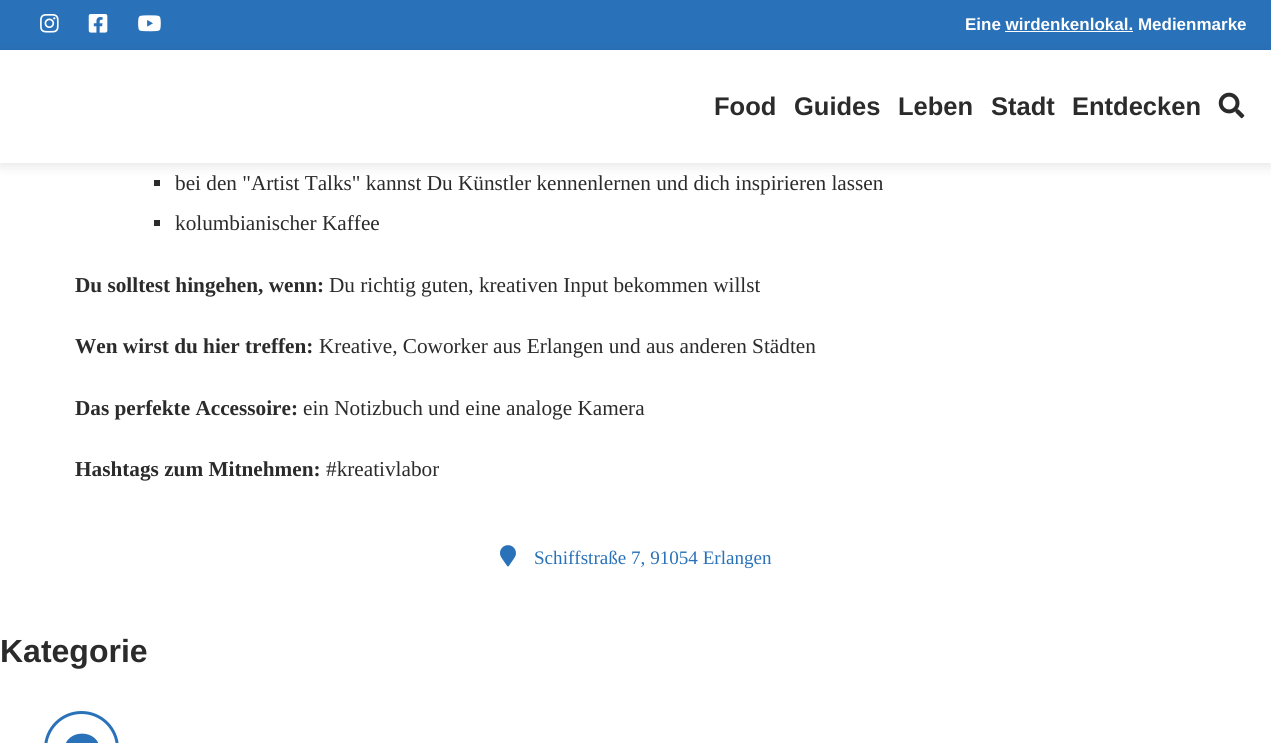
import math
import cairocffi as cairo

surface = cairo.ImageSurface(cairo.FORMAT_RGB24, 1271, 743)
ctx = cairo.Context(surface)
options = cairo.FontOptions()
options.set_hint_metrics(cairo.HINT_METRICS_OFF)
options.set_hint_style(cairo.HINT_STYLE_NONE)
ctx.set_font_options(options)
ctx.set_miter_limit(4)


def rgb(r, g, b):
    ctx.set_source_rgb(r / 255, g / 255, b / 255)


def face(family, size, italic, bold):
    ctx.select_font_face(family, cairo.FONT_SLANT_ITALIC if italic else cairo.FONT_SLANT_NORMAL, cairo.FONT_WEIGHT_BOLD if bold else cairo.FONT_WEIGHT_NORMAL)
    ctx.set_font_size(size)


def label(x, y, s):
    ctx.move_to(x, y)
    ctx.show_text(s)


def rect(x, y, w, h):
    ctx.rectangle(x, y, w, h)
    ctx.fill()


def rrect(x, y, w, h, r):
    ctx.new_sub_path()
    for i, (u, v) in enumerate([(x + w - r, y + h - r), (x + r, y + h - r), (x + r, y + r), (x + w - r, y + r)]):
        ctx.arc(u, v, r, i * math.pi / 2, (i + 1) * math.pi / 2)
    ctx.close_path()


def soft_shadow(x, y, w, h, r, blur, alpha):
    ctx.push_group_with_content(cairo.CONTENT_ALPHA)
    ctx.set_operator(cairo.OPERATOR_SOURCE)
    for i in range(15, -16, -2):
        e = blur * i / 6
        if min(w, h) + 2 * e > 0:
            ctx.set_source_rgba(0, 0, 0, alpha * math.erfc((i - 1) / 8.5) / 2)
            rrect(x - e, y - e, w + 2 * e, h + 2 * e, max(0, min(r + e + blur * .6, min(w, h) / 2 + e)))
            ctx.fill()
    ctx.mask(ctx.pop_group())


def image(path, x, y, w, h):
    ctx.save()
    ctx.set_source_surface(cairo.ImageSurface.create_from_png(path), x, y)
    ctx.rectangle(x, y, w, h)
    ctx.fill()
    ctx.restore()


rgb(255, 255, 255)
ctx.paint()
rgb(41, 113, 184)
rect(0, 0, 1271, 50)
image('image0.png', 40, 14, 19, 19)
image('image1.png', 88, 14, 20, 19)
image('image2.png', 138, 15, 23, 17)
face('Liberation Sans', 17, 0, 1)
rgb(255, 255, 255)
label(965, 30, 'Eine wirdenkenlokal. Medienmarke')
rect(1005, 31, 128, 1)
rgb(43, 43, 43)
rect(154, 180, 6, 6)
rgb(0, 0, 0)
soft_shadow(0, 54, 1271, 112, 0, 6, 0.1)
rgb(255, 255, 255)
rect(0, 50, 1271, 113)
face('Liberation Sans', 25.5, 0, 1)
rgb(43, 43, 43)
label(714, 115, 'Food')
label(794, 115, 'Guides')
label(898, 115, 'Leben')
label(991, 115, 'Stadt')
label(1072, 115, 'Entdecken')
image('image3.png', 1218, 92, 27, 27)
face('Liberation Serif', 21.25, 0, 0)
label(175, 190, 'bei den "Artist Talks" kannst Du Künstler kennenlernen und dich inspirieren lassen')
rect(154, 220, 6, 6)
label(175, 230, 'kolumbianischer Kaffee')
face('Liberation Serif', 21.25, 0, 1)
label(75, 292, 'Du solltest hingehen, wenn:')
face('Liberation Serif', 21.25, 0, 0)
label(329, 292, 'Du richtig guten, kreativen Input bekommen willst')
face('Liberation Serif', 21.25, 0, 1)
label(75, 353, 'Wen wirst du hier treffen:')
face('Liberation Serif', 21.25, 0, 0)
label(319, 353, 'Kreative, Coworker aus Erlangen und aus anderen Städten')
face('Liberation Serif', 21.25, 0, 1)
label(75, 415, 'Das perfekte Accessoire:')
face('Liberation Serif', 21.25, 0, 0)
label(303, 415, 'ein Notizbuch und eine analoge Kamera')
face('Liberation Serif', 21.25, 0, 1)
label(75, 476, 'Hashtags zum Mitnehmen:')
face('Liberation Serif', 21.25, 0, 0)
label(326, 476, '#kreativlabor')
image('image4.png', 500, 545, 16, 22)
face('Liberation Serif', 19.1, 0, 0)
rgb(41, 113, 184)
label(534, 564, 'Schiffstraße 7, 91054 Erlangen')
face('Liberation Sans', 32, 0, 1)
rgb(43, 43, 43)
label(0, 662, 'Kategorie')
rrect(45.5, 712.5, 72, 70, 36)
rgb(41, 113, 184)
ctx.set_line_width(3)
ctx.stroke()
image('image5.png', 66, 733, 33, 10)
surface.write_to_png('render.png')
